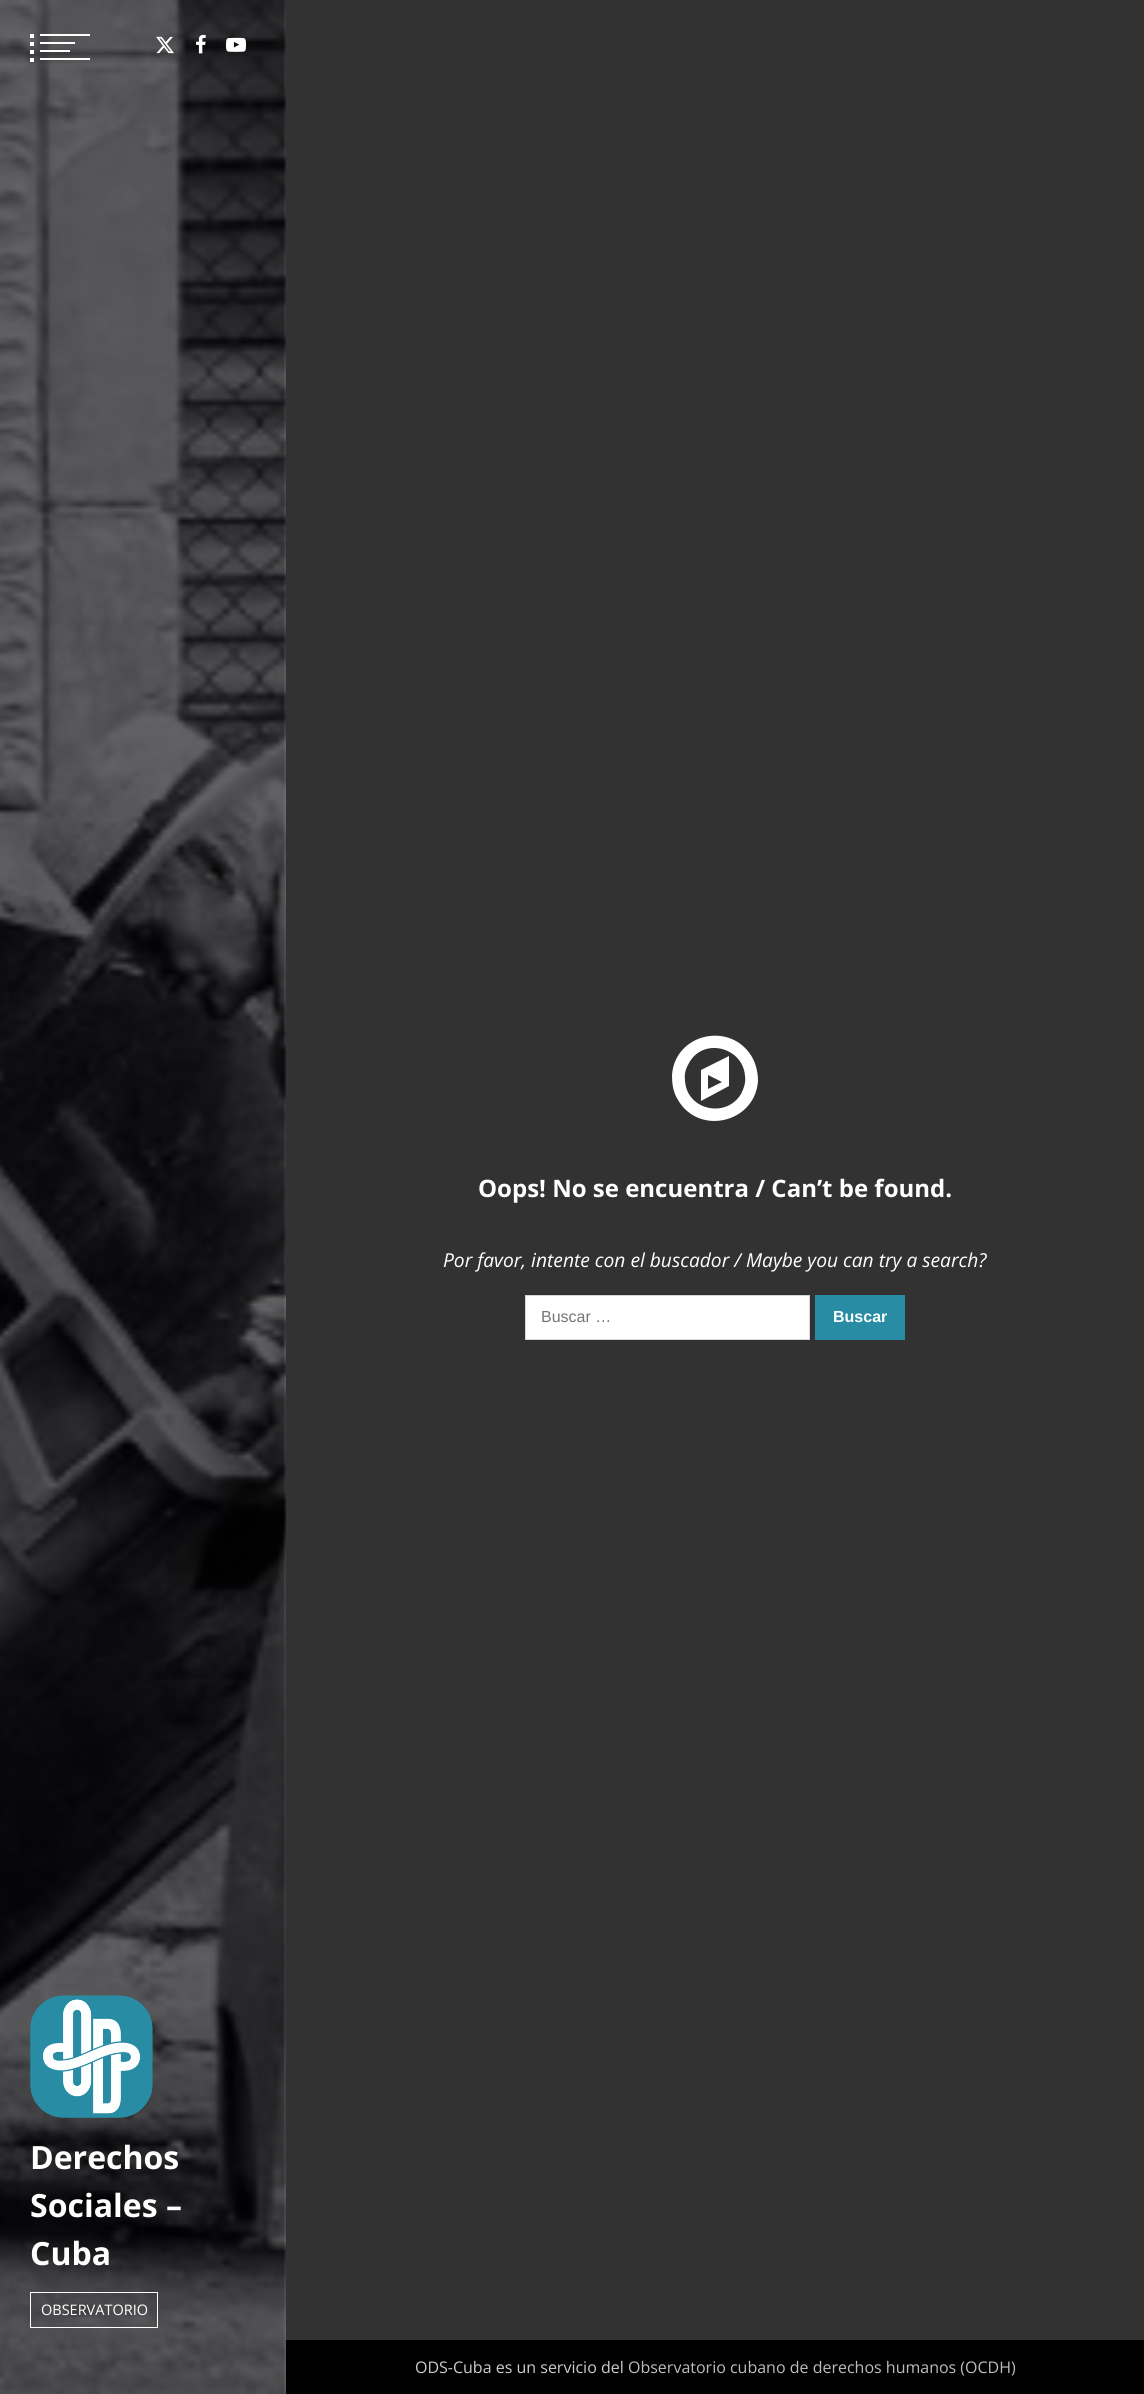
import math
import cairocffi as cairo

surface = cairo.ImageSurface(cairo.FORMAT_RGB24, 1144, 2394)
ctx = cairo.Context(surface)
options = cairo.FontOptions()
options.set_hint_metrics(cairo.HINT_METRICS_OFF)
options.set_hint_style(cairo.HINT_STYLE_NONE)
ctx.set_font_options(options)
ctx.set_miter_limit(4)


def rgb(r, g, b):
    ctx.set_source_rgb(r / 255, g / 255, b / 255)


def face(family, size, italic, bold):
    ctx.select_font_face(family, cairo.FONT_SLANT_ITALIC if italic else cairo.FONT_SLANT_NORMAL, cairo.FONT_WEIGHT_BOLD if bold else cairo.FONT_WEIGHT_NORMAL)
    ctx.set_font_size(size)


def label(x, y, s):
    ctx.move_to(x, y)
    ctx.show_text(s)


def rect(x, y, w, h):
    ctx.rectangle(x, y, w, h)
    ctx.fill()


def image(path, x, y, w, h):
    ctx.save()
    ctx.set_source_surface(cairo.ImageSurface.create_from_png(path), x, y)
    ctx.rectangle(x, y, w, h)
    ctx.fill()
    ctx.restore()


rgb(255, 255, 255)
ctx.paint()
image('image0.png', 0, 0, 286, 2394)
rgb(255, 255, 255)
rect(30, 34, 4, 4)
rect(40, 34, 50, 2)
rect(30, 42, 4, 4)
rect(40, 42, 35, 2)
rect(30, 50, 4, 4)
rect(40, 50, 30, 2)
rect(30, 58, 4, 4)
rect(40, 58, 50, 2)
image('image1.png', 156, 36, 18, 18)
image('image2.png', 196, 34, 10, 20)
image('image3.png', 226, 37, 20, 15)
image('image4.png', 30, 1995, 123, 123)
face('Open Sans', 32, 0, 1)
label(30, 2169, 'Derechos')
label(30, 2217, 'Sociales –')
label(30, 2265, 'Cuba')
ctx.rectangle(30.5, 2292.5, 127, 35)
ctx.set_line_width(1)
ctx.stroke()
face('Open Sans', 14.5, 0, 0)
label(41, 2315, 'OBSERVATORIO')
rgb(50, 50, 50)
rect(286, 0, 858, 2340)
rgb(255, 255, 255)
ctx.new_path()
ctx.move_to(708, 1089)
ctx.line_to(722, 1082)
ctx.line_to(708, 1075)
ctx.close_path()
ctx.move_to(729, 1056)
ctx.line_to(729, 1086)
ctx.line_to(701, 1101)
ctx.line_to(701, 1070)
ctx.close_path()
ctx.move_to(741, 1094)
ctx.curve_to(744, 1088, 746, 1082, 745, 1076)
ctx.curve_to(743, 1047, 703, 1037, 689, 1063)
ctx.curve_to(686, 1068, 684, 1074, 685, 1080)
ctx.curve_to(686, 1110, 726, 1119, 741, 1094)
ctx.close_path()
ctx.move_to(752, 1057)
ctx.curve_to(756, 1064, 758, 1073, 758, 1081)
ctx.curve_to(755, 1123, 699, 1136, 678, 1100)
ctx.curve_to(673, 1092, 672, 1084, 672, 1075)
ctx.curve_to(675, 1033, 731, 1021, 752, 1057)
ctx.close_path()
ctx.fill()
face('Open Sans', 24, 0, 1)
label(478, 1197, 'Oops! No se encuentra / Can’t be found.')
face('Open Sans', 19.2, 1, 0)
label(443, 1267, 'Por favor, intente con el buscador / Maybe you can try a search?')
ctx.rectangle(525.5, 1295.5, 284, 44)
ctx.fill_preserve()
rgb(207, 216, 220)
ctx.stroke()
face('Liberation Sans', 16, 0, 0)
rgb(117, 117, 117)
label(541, 1322, 'Buscar …')
rgb(40, 140, 165)
rect(815, 1295, 90, 45)
face('Liberation Sans', 16, 0, 1)
rgb(255, 255, 255)
label(833, 1322, 'Buscar')
rgb(0, 0, 0)
rect(286, 2340, 858, 54)
face('Open Sans', 16, 0, 0)
rgb(205, 205, 205)
label(415, 2373, 'ODS-Cuba es un servicio del')
rgb(189, 189, 189)
label(628, 2373, 'Observatorio cubano de derechos humanos (OCDH)')
surface.write_to_png('render.png')
